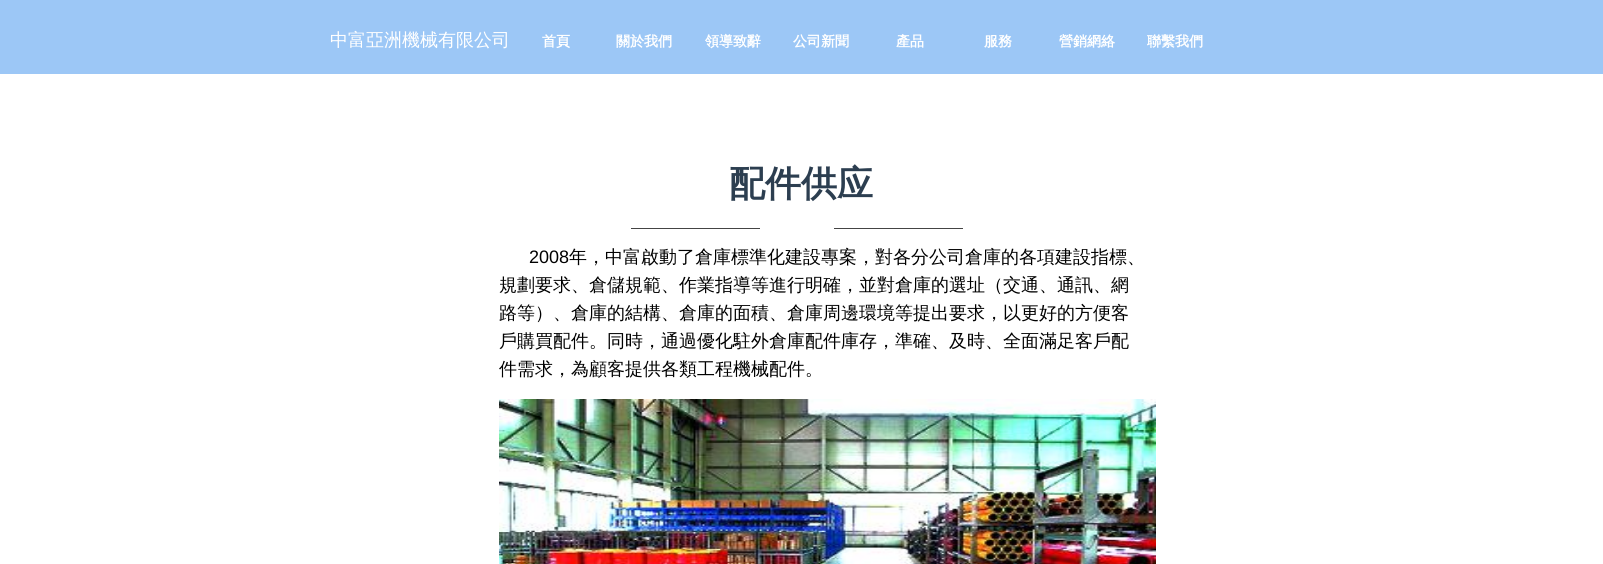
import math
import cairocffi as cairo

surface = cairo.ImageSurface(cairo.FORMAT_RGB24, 1603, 564)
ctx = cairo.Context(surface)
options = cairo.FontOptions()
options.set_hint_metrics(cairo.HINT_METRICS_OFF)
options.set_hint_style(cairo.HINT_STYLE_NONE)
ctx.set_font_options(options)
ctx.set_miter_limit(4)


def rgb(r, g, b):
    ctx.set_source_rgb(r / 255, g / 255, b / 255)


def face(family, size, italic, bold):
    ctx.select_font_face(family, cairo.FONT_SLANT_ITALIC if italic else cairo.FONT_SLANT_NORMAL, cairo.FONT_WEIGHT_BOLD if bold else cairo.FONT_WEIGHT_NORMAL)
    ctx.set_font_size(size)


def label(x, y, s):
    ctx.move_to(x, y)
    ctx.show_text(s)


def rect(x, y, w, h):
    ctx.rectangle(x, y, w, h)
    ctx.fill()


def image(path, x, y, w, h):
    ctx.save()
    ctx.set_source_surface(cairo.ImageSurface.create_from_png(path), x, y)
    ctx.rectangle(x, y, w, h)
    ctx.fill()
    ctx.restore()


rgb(255, 255, 255)
ctx.paint()
rgb(156, 199, 246)
rect(0, 0, 1603, 74)
face('WenQuanYi Zen Hei Medium', 18, 0, 0)
rgb(255, 255, 255)
label(330, 46, '中富亞洲機械有限公司')
face('WenQuanYi Zen Hei', 14, 0, 1)
label(542, 46, '首頁')
label(616, 46, '關於我們')
label(705, 46, '領導致辭')
label(793, 46, '公司新聞')
label(896, 46, '產品')
label(984, 46, '服務')
label(1059, 46, '營銷網絡')
label(1147, 46, '聯繫我們')
face('WenQuanYi Zen Hei', 36, 0, 1)
rgb(44, 62, 80)
label(729, 196, '配件供应')
rgb(68, 68, 68)
rect(631, 228, 129, 1)
rect(834, 228, 129, 1)
face('Liberation Sans', 18, 0, 0)
rgb(0, 0, 0)
label(529, 263, '2008')
face('WenQuanYi Zen Hei Medium', 18, 0, 0)
label(569, 263, '年，中富啟動了倉庫標準化建設專案，對各分公司倉庫的各項建設指標、')
label(499, 291, '規劃要求、倉儲規範、作業指導等進行明確，並對倉庫的選址（交通、通訊、網')
label(499, 319, '路等）、倉庫的結構、倉庫的面積、倉庫周邊環境等提出要求，以更好的方便客')
label(499, 347, '戶購買配件。同時，通過優化駐外倉庫配件庫存，準確、及時、全面滿足客戶配')
label(499, 375, '件需求，為顧客提供各類工程機械配件。')
image('image0.png', 499, 399, 657, 165)
surface.write_to_png('render.png')
